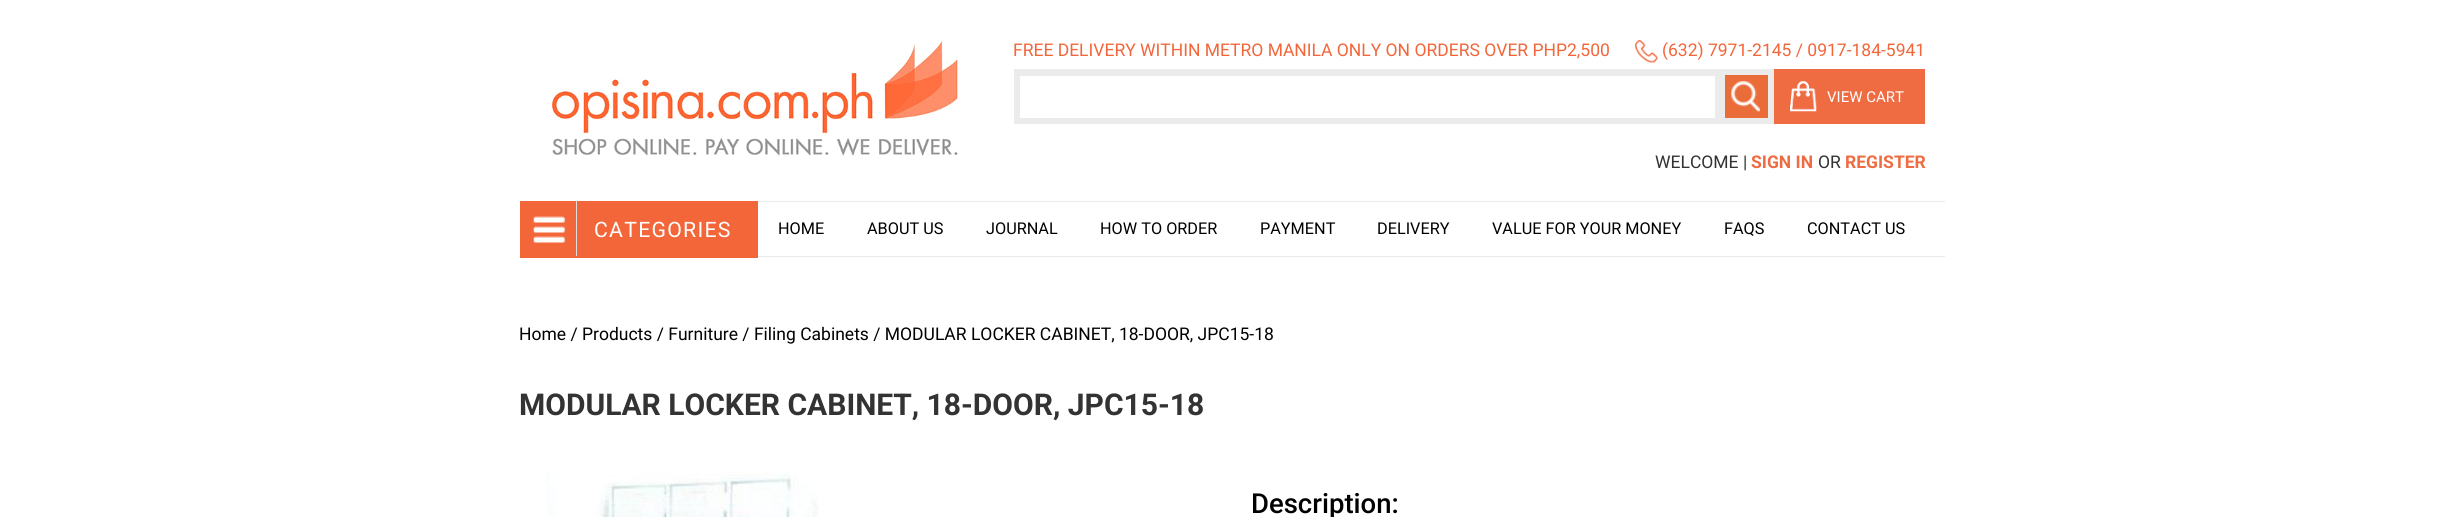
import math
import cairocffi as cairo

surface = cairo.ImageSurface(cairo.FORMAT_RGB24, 2463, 517)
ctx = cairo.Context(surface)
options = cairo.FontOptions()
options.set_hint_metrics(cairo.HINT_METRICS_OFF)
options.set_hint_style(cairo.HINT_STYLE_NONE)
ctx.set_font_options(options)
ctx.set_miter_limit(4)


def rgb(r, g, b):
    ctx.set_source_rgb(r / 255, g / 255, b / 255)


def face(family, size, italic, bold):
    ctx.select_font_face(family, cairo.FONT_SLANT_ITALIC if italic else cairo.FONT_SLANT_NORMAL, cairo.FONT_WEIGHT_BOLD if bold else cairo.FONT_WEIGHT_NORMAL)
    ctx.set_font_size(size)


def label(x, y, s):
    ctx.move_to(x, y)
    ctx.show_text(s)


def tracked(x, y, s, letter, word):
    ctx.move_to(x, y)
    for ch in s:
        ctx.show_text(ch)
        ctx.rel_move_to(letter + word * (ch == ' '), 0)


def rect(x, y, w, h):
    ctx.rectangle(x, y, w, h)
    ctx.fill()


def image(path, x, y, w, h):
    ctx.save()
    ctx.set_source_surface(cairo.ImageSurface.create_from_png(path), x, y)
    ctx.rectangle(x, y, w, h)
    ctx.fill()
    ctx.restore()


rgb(255, 255, 255)
ctx.paint()
image('image0.png', 552, 41, 406, 115)
face('Roboto', 17.5, 0, 0)
rgb(242, 102, 58)
label(1013, 56, 'FREE DELIVERY WITHIN METRO MANILA ONLY ON ORDERS OVER PHP2,500')
image('image1.png', 1635, 40, 23, 23)
label(1662, 56, '(632) 7971-2145 / 0917-184-5941')
rgb(235, 235, 235)
rect(1014, 69, 760, 55)
rgb(255, 255, 255)
rect(1020, 76, 695, 42)
rgb(233, 108, 57)
rect(1725, 75, 43, 43)
image('image2.png', 1731, 81, 29, 31)
rgb(239, 107, 66)
rect(1774, 69, 151, 55)
image('image3.png', 1790, 81, 27, 31)
face('Roboto', 15, 0, 0)
rgb(255, 255, 255)
label(1827, 102, 'VIEW CART')
face('Roboto', 17.5, 0, 0)
rgb(51, 51, 51)
label(1655, 168, 'WELCOME |')
face('Roboto', 17.5, 0, 1)
rgb(239, 107, 66)
label(1751, 168, 'SIGN IN')
face('Roboto', 17.5, 0, 0)
rgb(51, 51, 51)
label(1818, 168, 'OR')
face('Roboto', 17.5, 0, 1)
rgb(239, 107, 66)
label(1845, 168, 'REGISTER')
rgb(242, 102, 58)
rect(520, 201, 238, 57)
image('image4.png', 533, 216, 32, 27)
rgb(221, 221, 221)
rect(576, 201, 1, 55)
face('Roboto', 21.25, 0, 0)
rgb(255, 255, 255)
tracked(594, 237, 'CATEGORIES', 1.25, 0)
rgb(234, 234, 234)
rect(758, 201, 1187, 1)
rect(758, 256, 1187, 1)
face('Roboto', 16.25, 0, 0)
rgb(0, 0, 0)
label(778, 234, 'HOME')
label(867, 234, 'ABOUT US')
label(986, 234, 'JOURNAL')
label(1100, 234, 'HOW TO ORDER')
label(1260, 234, 'PAYMENT')
label(1377, 234, 'DELIVERY')
label(1492, 234, 'VALUE FOR YOUR MONEY')
label(1724, 234, 'FAQS')
label(1807, 234, 'CONTACT US')
face('Roboto', 17.5, 0, 0)
label(519, 340, 'Home / Products / Furniture / Filing Cabinets / MODULAR LOCKER CABINET, 18-DOOR, JPC15-18')
face('Roboto', 30, 0, 1)
rgb(51, 51, 51)
label(519, 415, 'MODULAR LOCKER CABINET, 18-DOOR, JPC15-18')
image('image5.png', 546, 471, 273, 46)
face('Roboto Medium', 27.5, 0, 0)
rgb(0, 0, 0)
label(1251, 513, 'Description:')
surface.write_to_png('render.png')
